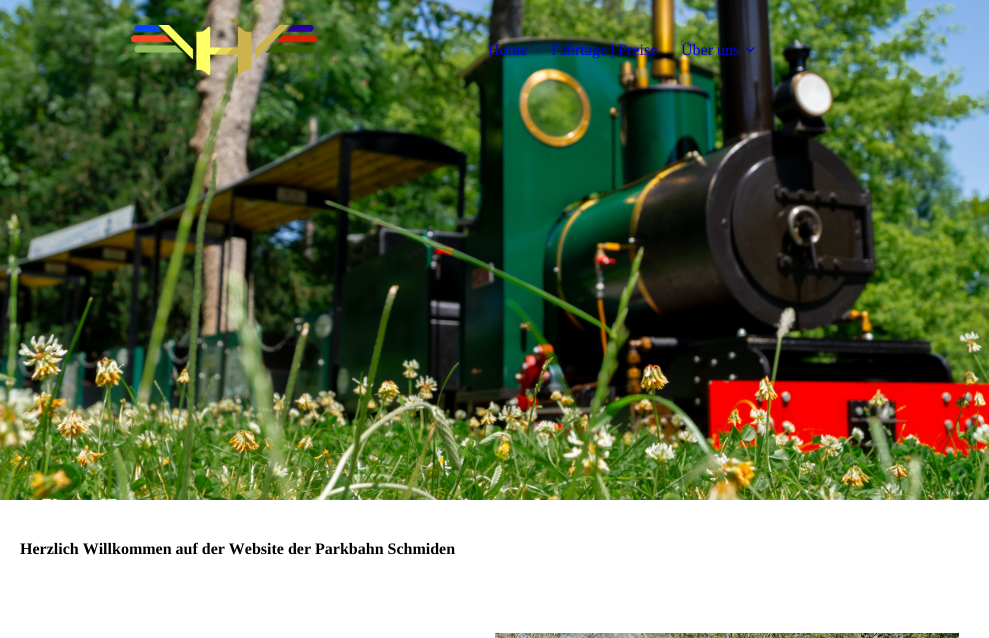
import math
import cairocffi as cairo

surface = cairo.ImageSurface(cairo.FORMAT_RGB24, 989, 638)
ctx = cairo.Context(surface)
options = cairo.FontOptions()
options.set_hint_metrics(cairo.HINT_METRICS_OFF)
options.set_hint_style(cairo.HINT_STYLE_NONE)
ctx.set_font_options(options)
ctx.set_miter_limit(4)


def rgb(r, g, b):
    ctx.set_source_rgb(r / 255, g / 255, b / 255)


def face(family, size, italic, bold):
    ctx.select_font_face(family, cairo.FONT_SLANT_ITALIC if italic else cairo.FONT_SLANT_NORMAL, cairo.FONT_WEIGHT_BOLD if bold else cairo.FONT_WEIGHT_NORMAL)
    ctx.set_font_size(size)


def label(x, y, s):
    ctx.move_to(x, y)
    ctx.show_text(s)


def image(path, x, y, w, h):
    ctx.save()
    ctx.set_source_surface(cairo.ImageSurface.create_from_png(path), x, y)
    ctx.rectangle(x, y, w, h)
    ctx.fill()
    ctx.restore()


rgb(255, 255, 255)
ctx.paint()
image('image0.png', 0, 0, 989, 500)
image('image1.png', 131, 25, 186, 50)
face('Liberation Serif', 16, 0, 0)
rgb(0, 0, 238)
label(488, 55, 'Home')
label(551, 55, 'Fahrtage | Preise')
label(681, 55, 'Über uns')
image('image2.png', 745, 47, 10, 6)
face('Liberation Serif', 16, 0, 1)
rgb(0, 0, 0)
label(20, 554, 'Herzlich Willkommen auf der Website der Parkbahn Schmiden')
image('image3.png', 495, 633, 464, 5)
surface.write_to_png('render.png')
